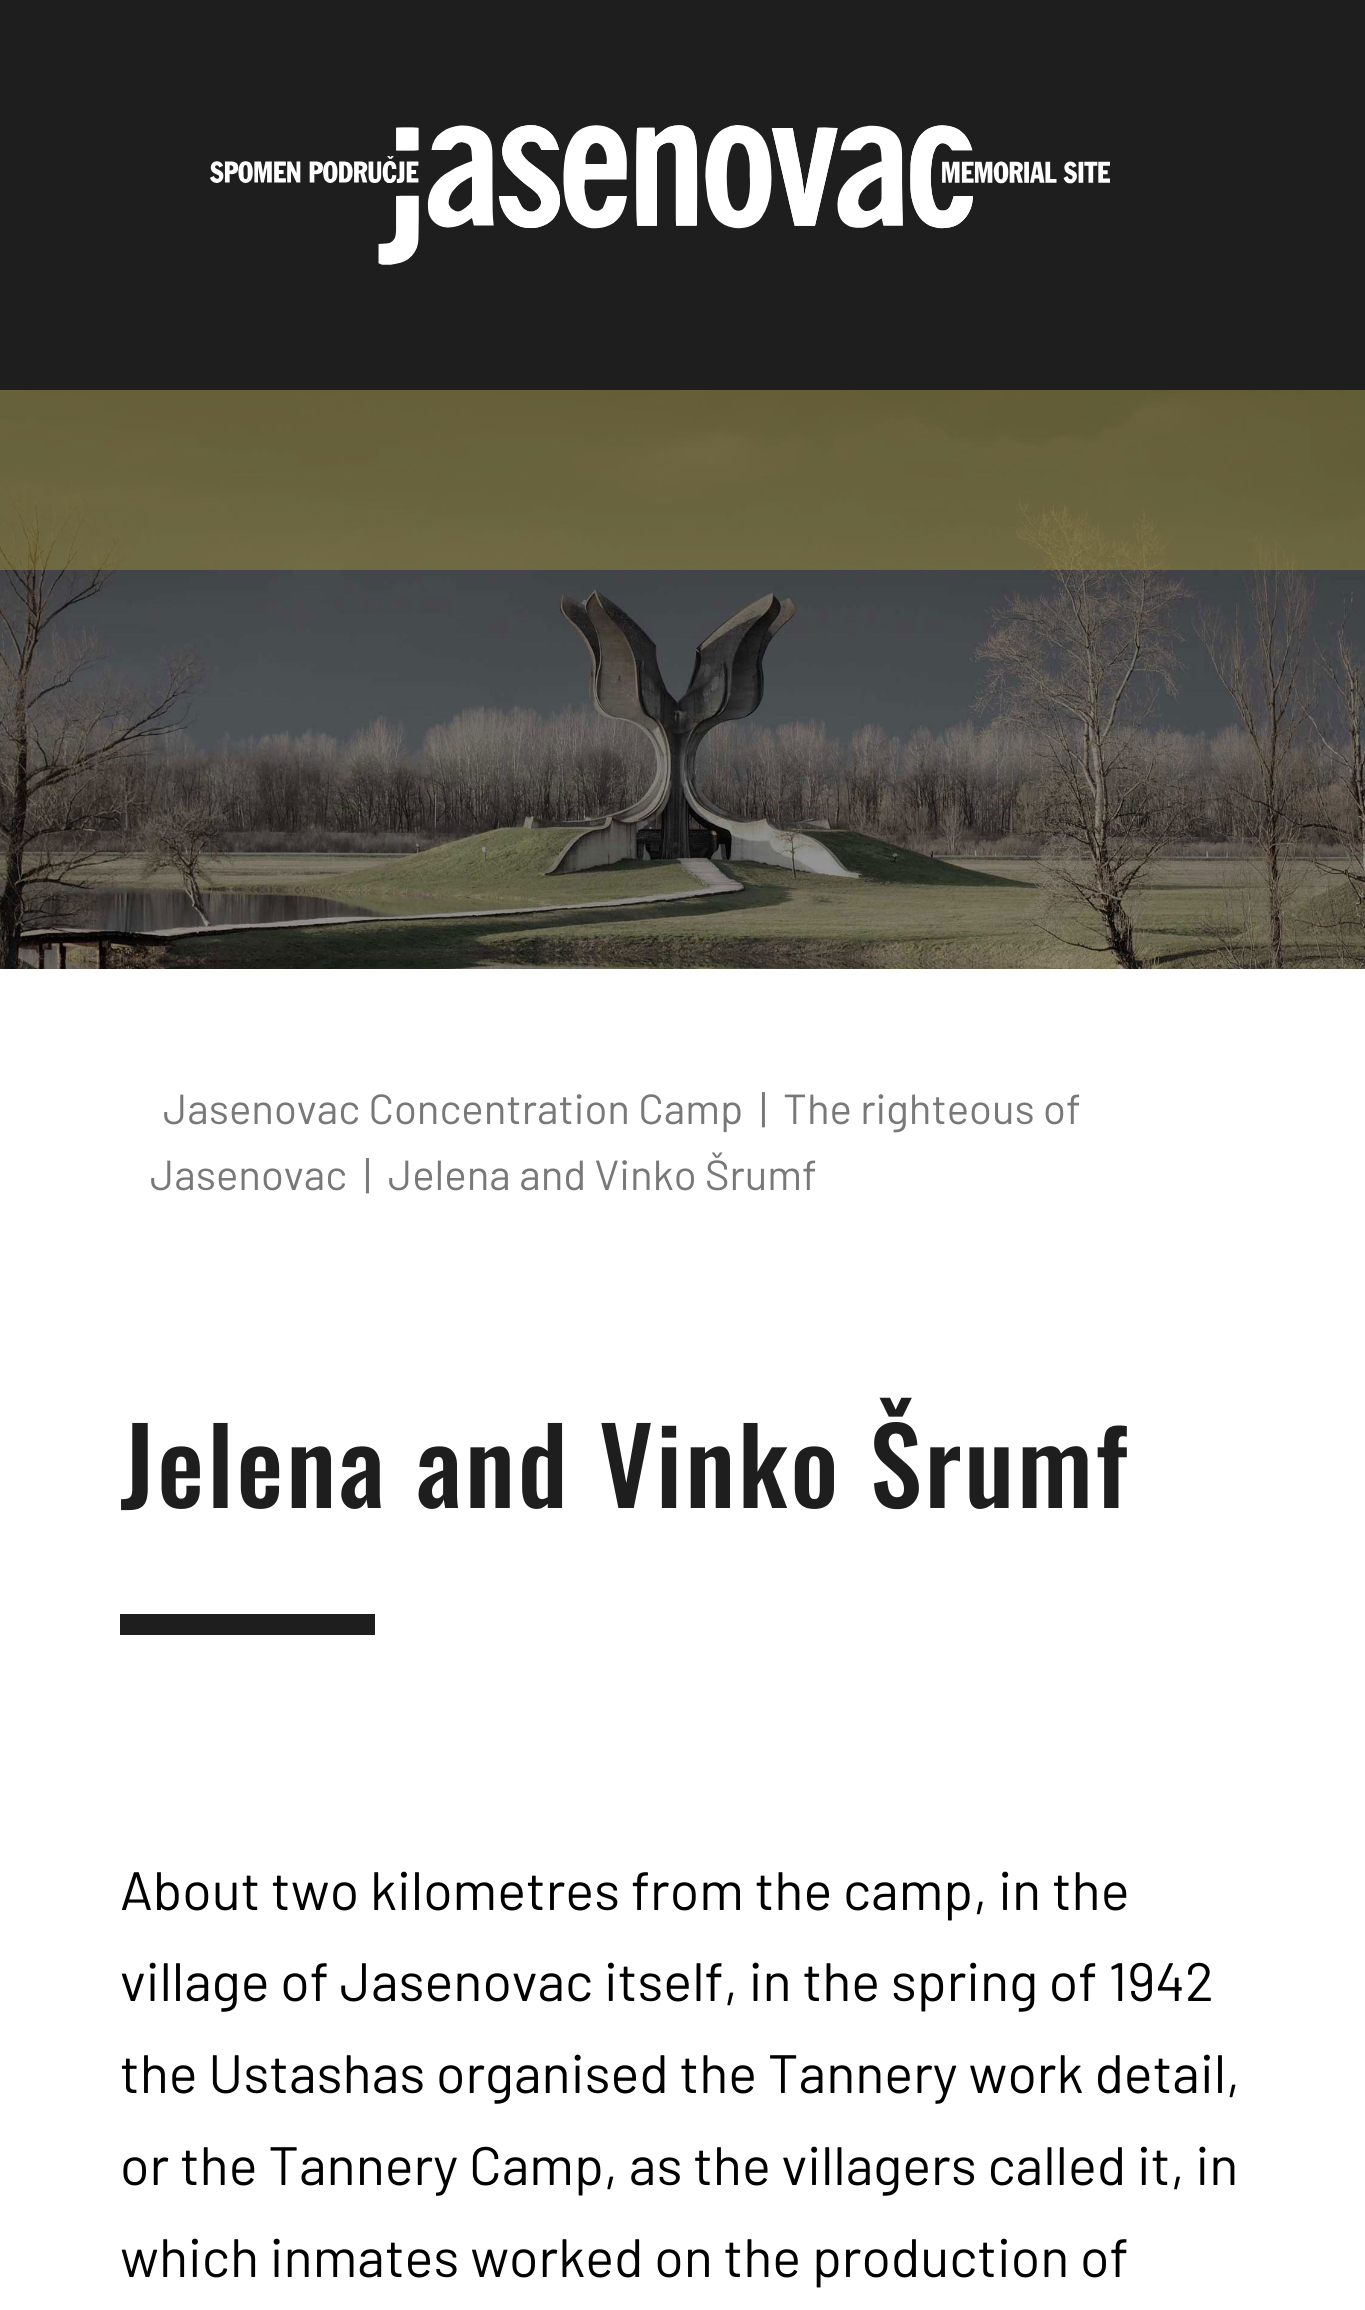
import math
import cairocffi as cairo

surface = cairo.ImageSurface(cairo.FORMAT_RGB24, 1365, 2310)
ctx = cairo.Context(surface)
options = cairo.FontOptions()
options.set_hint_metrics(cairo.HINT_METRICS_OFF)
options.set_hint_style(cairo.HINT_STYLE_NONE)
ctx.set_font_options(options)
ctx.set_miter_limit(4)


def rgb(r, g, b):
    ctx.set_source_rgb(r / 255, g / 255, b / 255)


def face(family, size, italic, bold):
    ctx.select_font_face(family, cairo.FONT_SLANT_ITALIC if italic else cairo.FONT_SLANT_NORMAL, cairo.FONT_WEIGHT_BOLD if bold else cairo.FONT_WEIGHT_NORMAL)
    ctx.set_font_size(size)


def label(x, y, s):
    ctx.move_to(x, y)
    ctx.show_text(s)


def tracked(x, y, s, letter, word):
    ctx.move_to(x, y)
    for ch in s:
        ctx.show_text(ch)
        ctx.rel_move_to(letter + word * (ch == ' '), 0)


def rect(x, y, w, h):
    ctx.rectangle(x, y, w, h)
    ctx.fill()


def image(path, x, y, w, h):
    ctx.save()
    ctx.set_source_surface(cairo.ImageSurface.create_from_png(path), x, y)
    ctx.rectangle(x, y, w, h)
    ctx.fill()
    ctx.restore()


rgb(255, 255, 255)
ctx.paint()
rgb(30, 30, 30)
rect(0, 0, 1365, 390)
image('image0.png', 210, 125, 900, 140)
image('image1.png', 0, 390, 1365, 579)
ctx.set_source_rgba(0.616, 0.557, 0.247, 0.5)
rect(0, 390, 1365, 180)
face('Barlow', 42, 0, 0)
rgb(120, 120, 120)
label(163, 1124, 'Jasenovac Concentration Camp')
label(760, 1124, '|')
label(783, 1124, 'The righteous of')
label(150, 1190, 'Jasenovac')
label(364, 1190, '|')
label(388, 1190, 'Jelena and Vinko Šrumf')
face('Oswald Medium', 105, 0, 0)
rgb(30, 30, 30)
tracked(120, 1508, 'Jelena and Vinko Šrumf', 3, 0)
rect(120, 1614, 255, 21)
face('Barlow', 54, 0, 0)
rgb(0, 0, 0)
label(120, 1910, 'About two kilometres from the camp, in the')
label(120, 2001, 'village of Jasenovac itself, in the spring of 1942')
label(120, 2093, 'the Ustashas organised the Tannery work detail,')
label(120, 2185, 'or the Tannery Camp, as the villagers called it, in')
label(120, 2277, 'which inmates worked on the production of')
surface.write_to_png('render.png')
